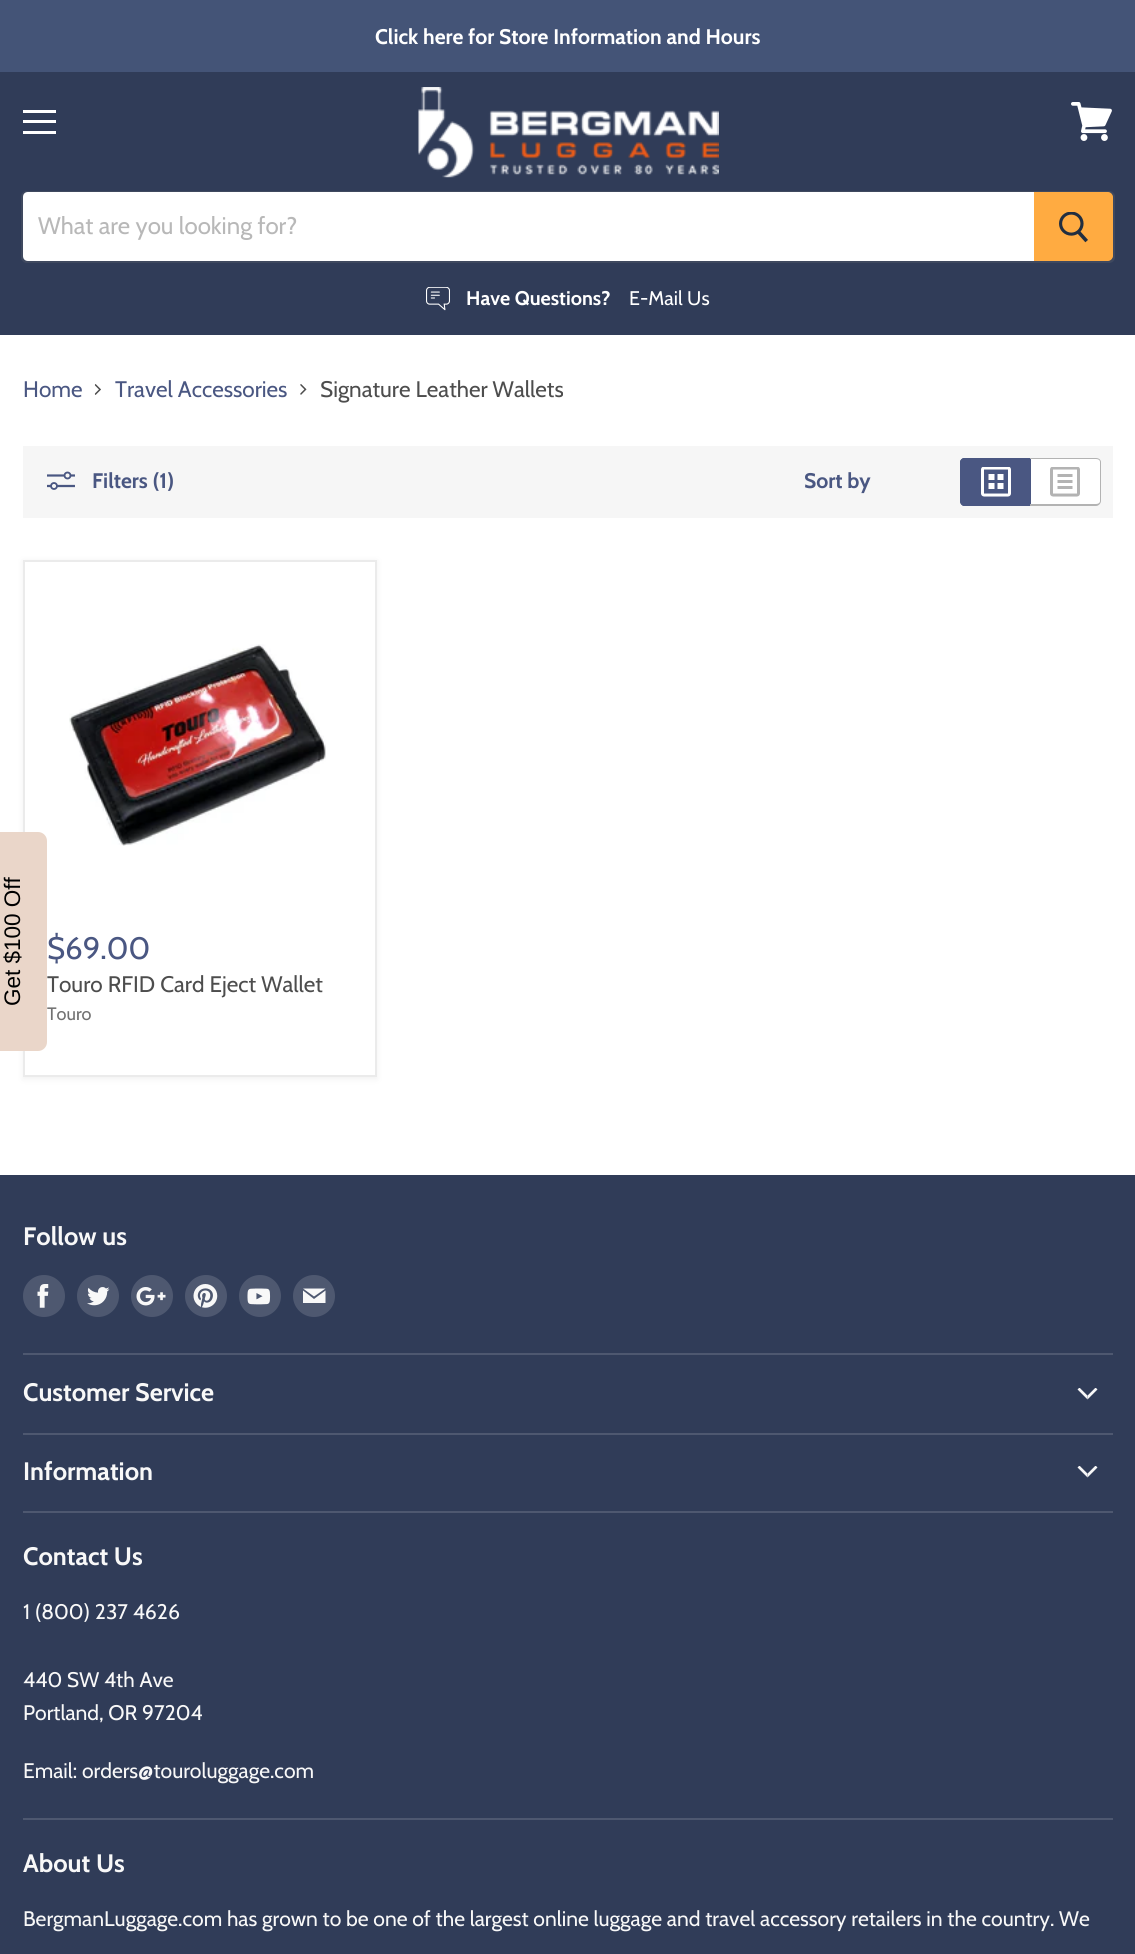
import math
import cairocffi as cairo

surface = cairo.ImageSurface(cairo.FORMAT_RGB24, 1135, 1954)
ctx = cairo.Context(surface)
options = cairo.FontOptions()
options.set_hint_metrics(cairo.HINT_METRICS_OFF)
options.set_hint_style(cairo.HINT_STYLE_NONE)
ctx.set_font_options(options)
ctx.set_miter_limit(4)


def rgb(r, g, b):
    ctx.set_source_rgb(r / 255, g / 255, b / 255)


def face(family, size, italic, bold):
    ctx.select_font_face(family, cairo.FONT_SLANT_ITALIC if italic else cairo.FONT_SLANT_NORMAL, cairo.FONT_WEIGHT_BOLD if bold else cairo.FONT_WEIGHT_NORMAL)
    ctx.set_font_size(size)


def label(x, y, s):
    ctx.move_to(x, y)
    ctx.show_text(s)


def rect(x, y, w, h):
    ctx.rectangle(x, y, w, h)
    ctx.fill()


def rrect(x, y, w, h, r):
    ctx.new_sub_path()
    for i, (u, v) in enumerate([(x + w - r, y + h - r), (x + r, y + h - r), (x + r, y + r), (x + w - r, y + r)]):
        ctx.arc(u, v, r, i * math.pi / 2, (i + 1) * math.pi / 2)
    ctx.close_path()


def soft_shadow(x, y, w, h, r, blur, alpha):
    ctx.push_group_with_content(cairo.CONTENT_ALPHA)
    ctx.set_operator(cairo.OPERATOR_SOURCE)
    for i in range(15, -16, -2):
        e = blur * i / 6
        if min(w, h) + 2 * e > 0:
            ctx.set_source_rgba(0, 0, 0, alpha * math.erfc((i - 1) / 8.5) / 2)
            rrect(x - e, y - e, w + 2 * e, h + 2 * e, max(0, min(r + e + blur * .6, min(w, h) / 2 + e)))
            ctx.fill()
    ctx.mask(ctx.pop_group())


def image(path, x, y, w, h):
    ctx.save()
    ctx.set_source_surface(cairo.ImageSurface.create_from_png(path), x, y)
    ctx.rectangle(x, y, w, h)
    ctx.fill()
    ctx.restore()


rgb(255, 255, 255)
ctx.paint()
rgb(68, 84, 119)
rect(0, 0, 1135, 72)
face('Cabin', 21.1, 0, 1)
rgb(255, 255, 255)
label(375, 44, 'Click here for Store Information and Hours')
rgb(48, 60, 88)
rect(0, 72, 1135, 263)
rgb(255, 255, 255)
rect(23, 110, 33, 3)
rect(23, 120, 33, 3)
rect(23, 131, 33, 3)
image('image0.png', 1071, 102, 41, 39)
image('image1.png', 418, 87, 301, 91)
rrect(22, 192, 1092, 70, 5)
ctx.set_source_rgba(0.498, 0.498, 0.498, 0.2)
ctx.stroke()
rgb(255, 255, 255)
ctx.new_path()
ctx.move_to(28, 192)
ctx.line_to(1034, 192)
ctx.line_to(1034, 261)
ctx.line_to(28, 261)
ctx.curve_to(25, 261, 23, 259, 23, 256)
ctx.line_to(23, 197)
ctx.curve_to(23, 194, 25, 192, 28, 192)
ctx.close_path()
ctx.fill()
face('Cabin', 24, 0, 0)
rgb(184, 184, 184)
label(38, 234, 'What are you looking for?')
rgb(255, 171, 65)
ctx.new_path()
ctx.move_to(1035, 193)
ctx.line_to(1108, 193)
ctx.curve_to(1110, 193, 1112, 195, 1112, 197)
ctx.line_to(1112, 256)
ctx.curve_to(1112, 258, 1110, 260, 1108, 260)
ctx.line_to(1035, 260)
ctx.close_path()
ctx.fill_preserve()
ctx.stroke()
image('image2.png', 1059, 212, 29, 31)
image('image3.png', 426, 287, 24, 24)
face('Cabin', 19.75, 0, 1)
rgb(255, 255, 255)
label(466, 305, 'Have Questions?')
face('Cabin', 19.75, 0, 0)
label(629, 305, 'E-Mail Us')
rgb(127, 127, 127)
soft_shadow(23, 561, 354, 518, 0, 3, 0.11)
rgb(255, 255, 255)
ctx.rectangle(24, 561, 352, 515)
ctx.fill_preserve()
rgb(235, 235, 235)
ctx.stroke()
face('Cabin', 22.5, 0, 0)
rgb(77, 77, 77)
label(47, 992, 'Touro RFID Card Eject Wallet')
face('Cabin', 18, 0, 0)
rgb(113, 113, 113)
label(47, 1020, 'Touro')
rgb(234, 214, 201)
ctx.new_path()
ctx.move_to(-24, 1042)
ctx.line_to(-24, 841)
ctx.curve_to(-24, 836, -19, 832, -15, 832)
ctx.line_to(38, 832)
ctx.curve_to(43, 832, 47, 836, 47, 841)
ctx.line_to(47, 1042)
ctx.curve_to(47, 1047, 43, 1051, 38, 1051)
ctx.line_to(-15, 1051)
ctx.curve_to(-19, 1051, -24, 1047, -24, 1042)
ctx.close_path()
ctx.fill()
face('Liberation Sans', 22.5, 0, 0)
rgb(0, 0, 0)
ctx.save()
ctx.translate(20, 1006)
ctx.rotate(-90 * math.pi / 180)
label(0, 0, 'Get $100 Off')
ctx.restore()
face('Cabin', 22.5, 0, 0)
rgb(74, 87, 130)
label(23, 397, 'Home')
image('image4.png', 94, 384, 7, 11)
label(115, 397, 'Travel Accessories')
image('image5.png', 300, 384, 7, 11)
rgb(77, 77, 77)
label(320, 397, 'Signature Leather Wallets')
rgb(246, 246, 246)
rect(23, 446, 1090, 72)
image('image6.png', 47, 471, 28, 19)
face('Cabin', 21.1, 0, 1)
rgb(74, 87, 130)
label(92, 488, 'Filters (1)')
label(804, 488, 'Sort by')
ctx.new_path()
ctx.move_to(965, 458)
ctx.line_to(1031, 458)
ctx.line_to(1031, 506)
ctx.line_to(965, 506)
ctx.curve_to(962, 506, 960, 504, 960, 501)
ctx.line_to(960, 463)
ctx.curve_to(960, 460, 962, 458, 965, 458)
ctx.close_path()
ctx.fill()
ctx.set_fill_rule(cairo.FILL_RULE_EVEN_ODD)
ctx.new_path()
ctx.move_to(964, 458)
ctx.line_to(1030, 458)
ctx.line_to(1030, 506)
ctx.line_to(964, 506)
ctx.curve_to(962, 506, 960, 503, 960, 501)
ctx.line_to(960, 462)
ctx.curve_to(960, 460, 962, 458, 964, 458)
ctx.close_path()
ctx.move_to(964, 459)
ctx.line_to(1030, 459)
ctx.line_to(1030, 504)
ctx.line_to(964, 504)
ctx.curve_to(963, 504, 962, 503, 962, 501)
ctx.line_to(962, 462)
ctx.curve_to(962, 460, 963, 459, 964, 459)
ctx.close_path()
ctx.fill()
image('image7.png', 981, 467, 30, 30)
rgb(255, 255, 255)
ctx.new_path()
ctx.move_to(1031, 458)
ctx.line_to(1096, 458)
ctx.curve_to(1099, 458, 1101, 460, 1101, 463)
ctx.line_to(1101, 501)
ctx.curve_to(1101, 504, 1099, 506, 1096, 506)
ctx.line_to(1031, 506)
ctx.close_path()
ctx.fill()
rgb(179, 179, 179)
ctx.new_path()
ctx.move_to(1030, 458)
ctx.line_to(1096, 458)
ctx.curve_to(1099, 458, 1101, 460, 1101, 462)
ctx.line_to(1101, 501)
ctx.curve_to(1101, 503, 1099, 506, 1096, 506)
ctx.line_to(1030, 506)
ctx.close_path()
ctx.move_to(1030, 459)
ctx.line_to(1096, 459)
ctx.curve_to(1098, 459, 1100, 460, 1100, 462)
ctx.line_to(1100, 501)
ctx.curve_to(1100, 503, 1098, 504, 1096, 504)
ctx.line_to(1030, 504)
ctx.close_path()
ctx.fill()
image('image8.png', 1050, 467, 30, 30)
image('image9.png', 69, 644, 257, 202)
face('Cabin', 31, 0, 0)
rgb(74, 87, 130)
label(47, 959, '$69.00')
rgb(48, 60, 88)
rect(0, 1175, 1135, 779)
rgb(78, 88, 112)
rect(23, 1353, 1090, 2)
face('Cabin', 25.25, 0, 1)
rgb(248, 248, 248)
label(23, 1245, 'Follow us')
rgb(78, 88, 112)
ctx.new_path()
ctx.arc(44, 1296, 21, 0, 2 * math.pi)
ctx.fill()
image('image10.png', 37, 1284, 12, 24)
ctx.arc(98, 1296, 21, 0, 2 * math.pi)
ctx.fill()
image('image11.png', 87, 1287, 23, 19)
ctx.arc(152, 1296, 21, 0, 2 * math.pi)
ctx.fill()
image('image12.png', 136, 1287, 30, 19)
ctx.arc(206, 1296, 21, 0, 2 * math.pi)
ctx.fill()
image('image13.png', 193, 1284, 25, 24)
ctx.arc(260, 1296, 21, 0, 2 * math.pi)
ctx.fill()
image('image14.png', 247, 1288, 24, 17)
ctx.arc(314, 1296, 21, 0, 2 * math.pi)
ctx.fill()
rgb(248, 248, 248)
ctx.new_path()
ctx.move_to(325.5, 1288.5)
ctx.line_to(303, 1288.5)
ctx.line_to(314, 1296.5)
ctx.close_path()
ctx.move_to(314, 1299)
ctx.line_to(303, 1290.5)
ctx.line_to(303, 1303)
ctx.line_to(325.5, 1303)
ctx.line_to(325.5, 1290.5)
ctx.close_path()
ctx.fill()
rgb(78, 88, 112)
rect(23, 1433, 1090, 2)
rgb(248, 248, 248)
label(23, 1401, 'Customer Service')
image('image15.png', 1077, 1388, 21, 12)
rgb(78, 88, 112)
rect(23, 1511, 1090, 2)
rgb(248, 248, 248)
label(23, 1480, 'Information')
image('image15.png', 1077, 1466, 21, 12)
rgb(78, 88, 112)
rect(23, 1818, 1090, 2)
rgb(248, 248, 248)
label(23, 1565, 'Contact Us')
face('Cabin', 21.1, 0, 0)
label(23, 1619, '1 (800) 237 4626')
label(23, 1687, '440 SW 4th Ave')
label(23, 1720, 'Portland, OR 97204')
label(23, 1778, 'Email: orders@touroluggage.com')
face('Cabin', 25.25, 0, 1)
label(23, 1872, 'About Us')
face('Cabin', 21.1, 0, 0)
label(23, 1926, 'BergmanLuggage.com has grown to be one of the largest online luggage and travel accessory retailers in the country. We')
surface.write_to_png('render.png')
